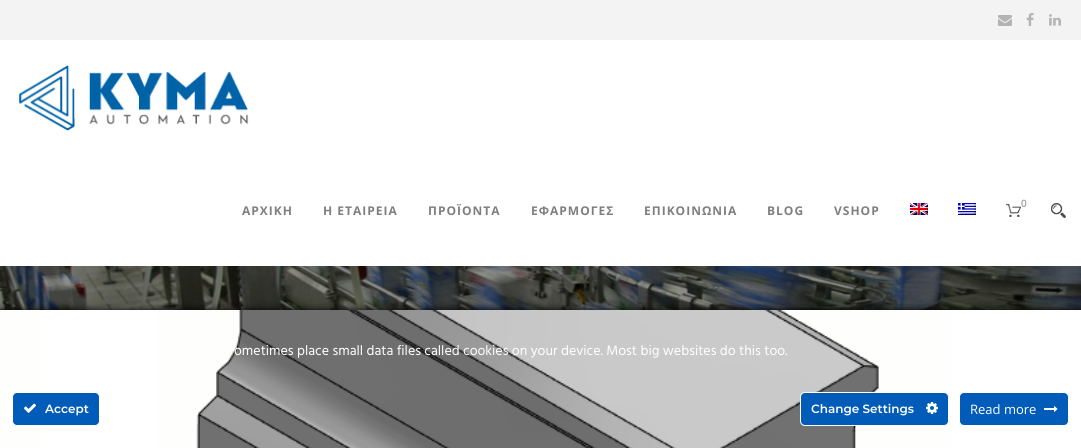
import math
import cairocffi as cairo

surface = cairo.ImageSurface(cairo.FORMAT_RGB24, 1081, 448)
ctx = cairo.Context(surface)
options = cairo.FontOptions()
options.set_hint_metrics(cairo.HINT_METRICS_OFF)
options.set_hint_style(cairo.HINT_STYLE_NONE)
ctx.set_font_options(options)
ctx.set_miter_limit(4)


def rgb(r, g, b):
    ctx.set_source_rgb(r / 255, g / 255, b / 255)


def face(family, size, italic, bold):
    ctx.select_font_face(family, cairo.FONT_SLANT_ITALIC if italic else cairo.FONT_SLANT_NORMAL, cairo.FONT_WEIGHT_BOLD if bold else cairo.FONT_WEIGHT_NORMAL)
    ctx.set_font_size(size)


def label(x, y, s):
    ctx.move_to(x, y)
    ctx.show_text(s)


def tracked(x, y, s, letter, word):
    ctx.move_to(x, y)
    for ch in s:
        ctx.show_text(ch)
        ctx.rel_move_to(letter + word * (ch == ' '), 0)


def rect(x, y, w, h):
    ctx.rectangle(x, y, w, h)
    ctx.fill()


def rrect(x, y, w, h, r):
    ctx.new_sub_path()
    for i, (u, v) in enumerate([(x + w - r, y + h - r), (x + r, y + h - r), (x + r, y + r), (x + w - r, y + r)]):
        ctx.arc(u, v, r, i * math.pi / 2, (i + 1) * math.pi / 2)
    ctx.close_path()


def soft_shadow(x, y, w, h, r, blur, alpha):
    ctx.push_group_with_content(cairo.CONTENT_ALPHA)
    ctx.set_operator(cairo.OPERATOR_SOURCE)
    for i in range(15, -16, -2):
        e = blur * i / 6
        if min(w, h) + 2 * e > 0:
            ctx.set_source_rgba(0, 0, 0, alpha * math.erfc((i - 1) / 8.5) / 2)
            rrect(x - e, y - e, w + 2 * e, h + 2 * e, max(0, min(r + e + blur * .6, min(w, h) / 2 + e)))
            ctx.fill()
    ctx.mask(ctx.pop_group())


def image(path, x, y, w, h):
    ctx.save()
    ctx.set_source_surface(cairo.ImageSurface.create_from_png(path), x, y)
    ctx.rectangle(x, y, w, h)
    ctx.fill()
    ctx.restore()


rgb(255, 255, 255)
ctx.paint()
rgb(243, 243, 243)
rect(0, 0, 1081, 40)
image('image0.png', 998, 15, 14, 11)
image('image1.png', 1026, 13, 8, 13)
image('image2.png', 1049, 14, 12, 12)
image('image3.png', 19, 65, 230, 66)
face('Open Sans', 12, 0, 1)
rgb(127, 127, 127)
tracked(242, 215, 'ΑΡΧΙΚΗ', 1, 0)
tracked(323, 215, 'Η ΕΤΑΙΡΕΙΑ', 1, 0)
tracked(428, 215, 'ΠΡΟΪΟΝΤΑ', 1, 0)
tracked(531, 215, 'ΕΦΑΡΜΟΓΕΣ', 1, 0)
tracked(644, 215, 'ΕΠΙΚΟΙΝΩΝΙΑ', 1, 0)
tracked(767, 215, 'BLOG', 1, 0)
tracked(834, 215, 'VSHOP', 1, 0)
image('image4.png', 910, 203, 18, 12)
image('image5.png', 958, 203, 18, 12)
image('image6.png', 1006, 204, 15, 13)
face('Open Sans', 10, 0, 0)
label(1021, 207, '0')
image('image7.png', 1051, 203, 15, 15)
image('image8.png', 0, 266, 1081, 44)
rgb(0, 0, 0)
soft_shadow(0, 310, 1081, 138, 0, 4, 1)
image('image9.png', 0, 310, 1081, 138)
face('Hind', 14, 0, 0)
rgb(255, 255, 255)
label(234, 355, 'ometimes place small data files called cookies on your device. Most big websites do this too.')
rgb(0, 92, 184)
rrect(12.5, 392.5, 87, 33, 4.5)
ctx.fill_preserve()
rgb(255, 255, 255)
ctx.set_line_width(1)
ctx.stroke()
image('image10.png', 24, 403, 12, 10)
face('Montserrat SemiBold', 12, 0, 0)
label(45, 413, 'Accept')
rgb(0, 92, 184)
rrect(800.5, 392.5, 148, 33, 4.5)
ctx.fill_preserve()
rgb(255, 255, 255)
ctx.stroke()
label(811, 413, 'Change Settings')
image('image11.png', 926, 402, 12, 12)
rgb(0, 92, 184)
rrect(959.5, 392.5, 109, 33, 4.5)
ctx.fill_preserve()
rgb(255, 255, 255)
ctx.stroke()
face('Open Sans', 13, 0, 0)
label(970, 414, 'Read more')
image('image12.png', 1044, 406, 14, 6)
surface.write_to_png('render.png')
